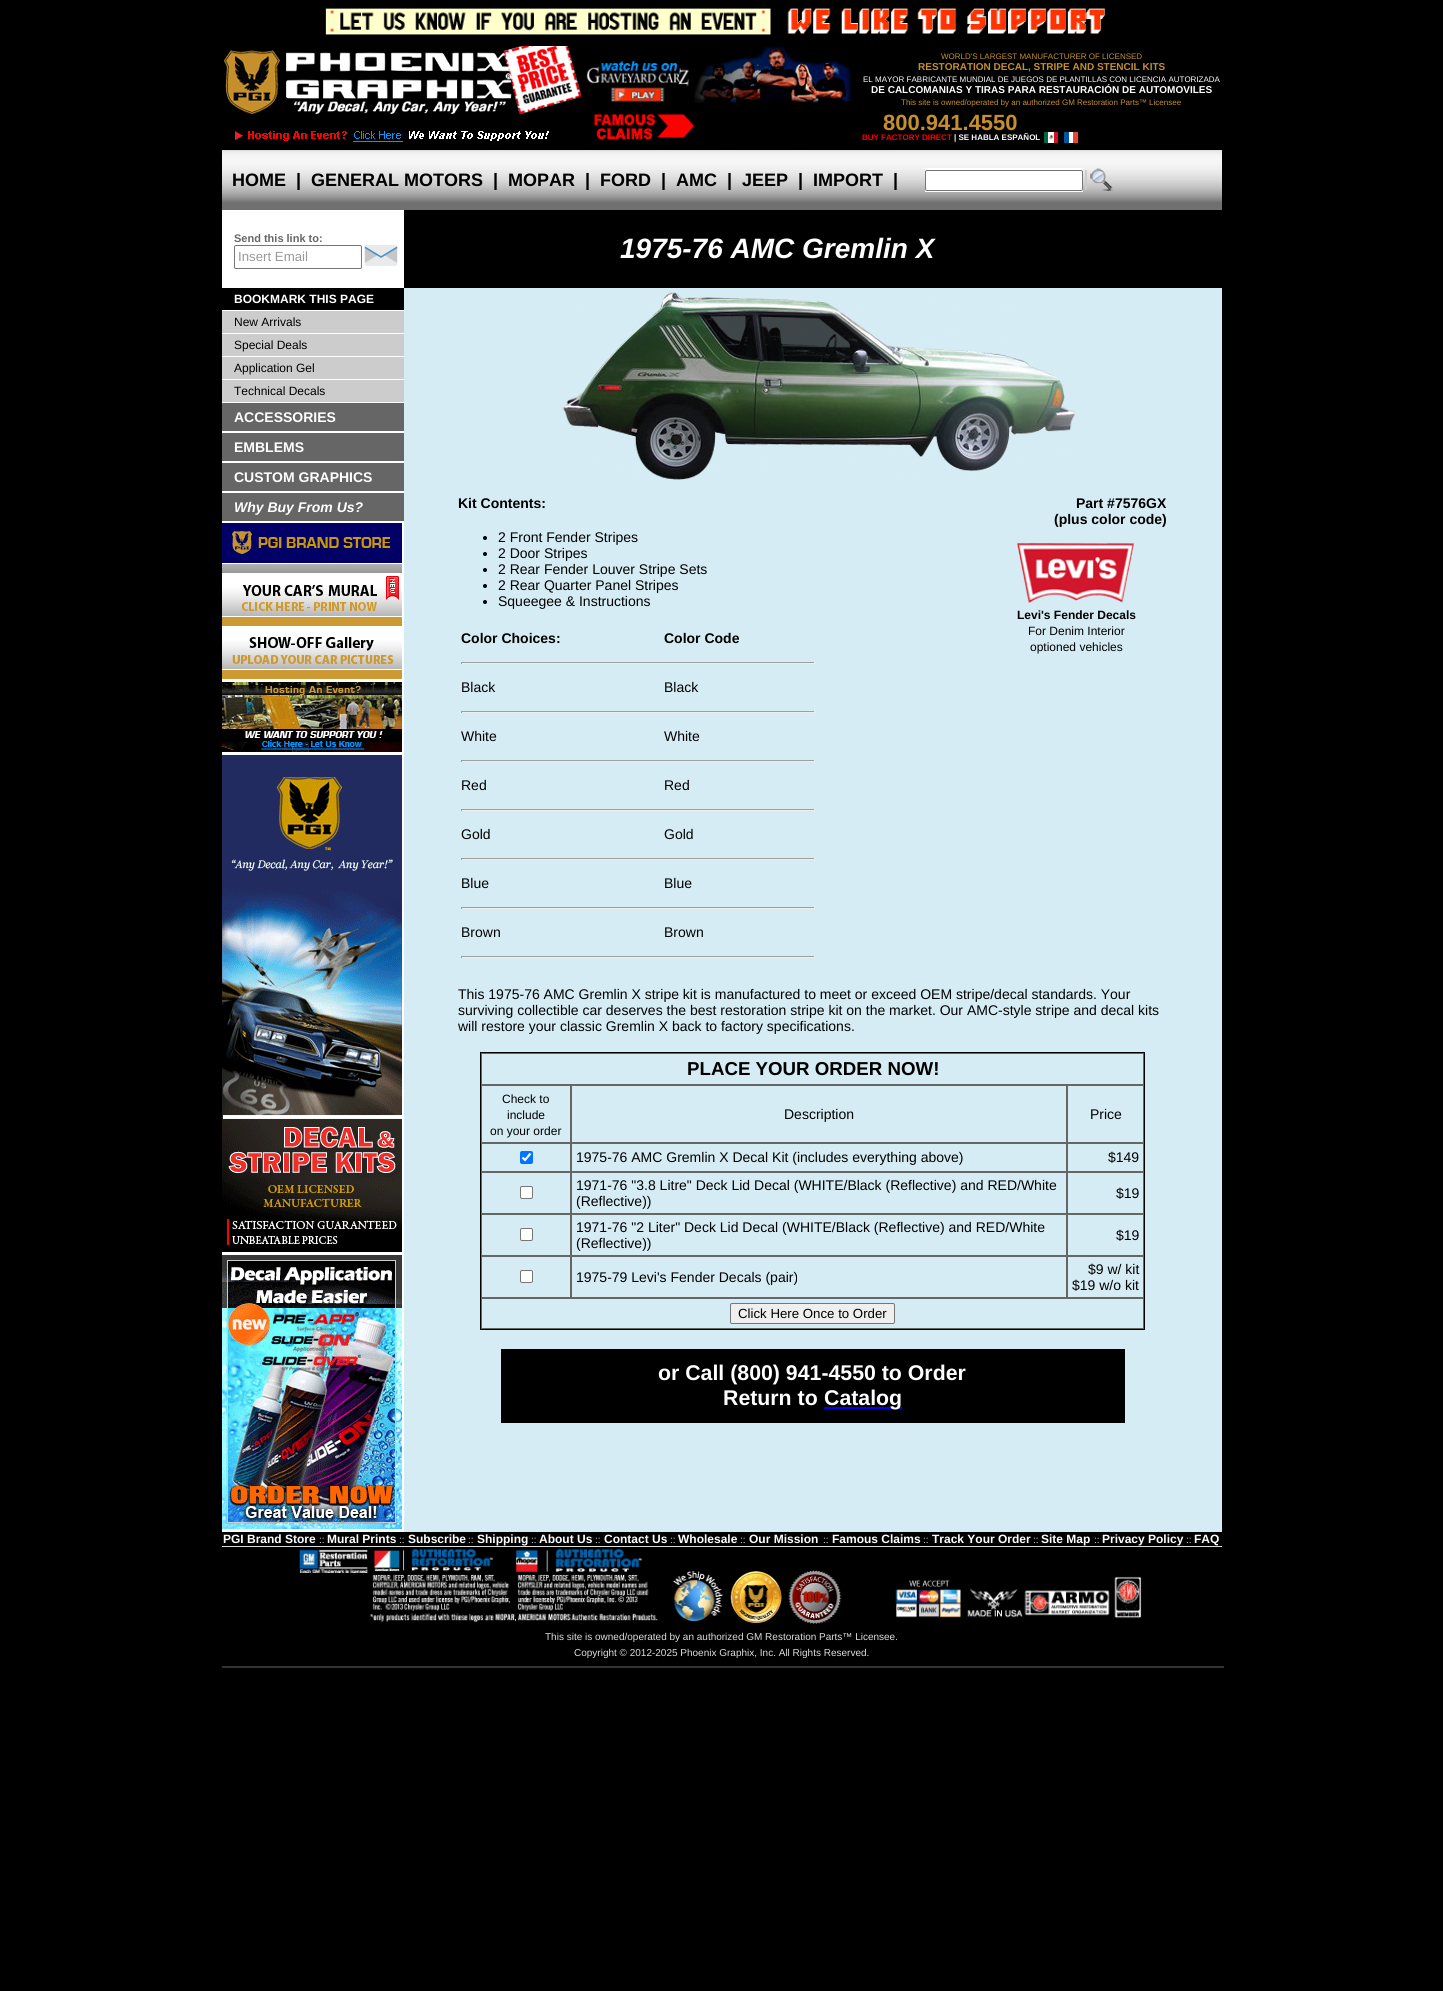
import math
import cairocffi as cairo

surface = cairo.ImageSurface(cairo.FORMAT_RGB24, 1443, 1991)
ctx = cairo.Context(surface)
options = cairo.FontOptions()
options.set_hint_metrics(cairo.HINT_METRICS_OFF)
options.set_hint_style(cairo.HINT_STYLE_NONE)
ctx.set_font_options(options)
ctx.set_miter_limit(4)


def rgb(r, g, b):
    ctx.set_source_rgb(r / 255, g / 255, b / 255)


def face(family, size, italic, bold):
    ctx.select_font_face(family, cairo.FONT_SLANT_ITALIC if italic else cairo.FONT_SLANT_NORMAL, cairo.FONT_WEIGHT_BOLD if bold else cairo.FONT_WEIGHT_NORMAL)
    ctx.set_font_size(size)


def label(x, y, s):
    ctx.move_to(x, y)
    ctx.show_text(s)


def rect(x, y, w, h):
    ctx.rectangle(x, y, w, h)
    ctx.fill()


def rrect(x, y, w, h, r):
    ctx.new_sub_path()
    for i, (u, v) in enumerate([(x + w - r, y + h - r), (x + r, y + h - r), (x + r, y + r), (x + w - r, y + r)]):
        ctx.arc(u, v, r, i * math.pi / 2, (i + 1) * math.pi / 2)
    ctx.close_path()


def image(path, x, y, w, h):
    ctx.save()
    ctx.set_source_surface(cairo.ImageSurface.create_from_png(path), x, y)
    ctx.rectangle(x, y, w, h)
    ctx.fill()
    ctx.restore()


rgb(0, 0, 0)
ctx.paint()
image('image0.png', 325, 8, 780, 27)
image('image1.png', 223, 46, 358, 69)
image('image2.png', 235, 131, 314, 11)
image('image3.png', 586, 46, 265, 57)
image('image4.png', 594, 114, 101, 26)
face('Liberation Sans', 8, 0, 0)
rgb(197, 144, 44)
label(941, 59, 'WORLD\'S LARGEST MANUFACTURER OF LICENSED')
face('Liberation Sans', 10, 0, 1)
label(918, 70, 'RESTORATION DECAL, STRIPE AND STENCIL KITS')
face('Liberation Sans', 8, 0, 0)
rgb(255, 255, 255)
label(863, 82, 'EL MAYOR FABRICANTE MUNDIAL DE JUEGOS DE PLANTILLAS CON LICENCIA AUTORIZADA')
face('Liberation Sans', 10, 0, 1)
label(871, 93, 'DE CALCOMANIAS Y TIRAS PARA RESTAURACIÓN DE AUTOMOVILES')
face('Liberation Sans', 8, 0, 0)
rgb(197, 144, 44)
label(901, 105, 'This site is owned/operated by an authorized GM Restoration Parts™ Licensee')
face('Liberation Sans', 22, 0, 1)
label(883, 130, '800.941.4550')
face('Liberation Sans', 8, 0, 1)
rgb(255, 0, 0)
label(862, 140, 'BUY FACTORY DIRECT')
rgb(255, 255, 255)
label(954, 140, '| SE HABLA ESPAÑOL')
image('image5.png', 1044, 132, 14, 11)
image('image6.png', 1064, 132, 14, 11)
image('image7.png', 222, 150, 1000, 60)
rgb(221, 221, 221)
rect(222, 150, 74, 1)
image('image8.png', 222, 151, 74, 51)
face('Liberation Sans', 18, 0, 1)
rgb(0, 0, 0)
label(232, 186, 'HOME')
label(296, 186, '|')
rgb(221, 221, 221)
rect(301, 150, 192, 1)
image('image9.png', 301, 151, 192, 51)
rgb(0, 0, 0)
label(311, 186, 'GENERAL MOTORS')
label(493, 186, '|')
rgb(221, 221, 221)
rect(498, 150, 87, 1)
image('image10.png', 498, 151, 87, 51)
rgb(0, 0, 0)
label(508, 186, 'MOPAR')
label(585, 186, '|')
rgb(221, 221, 221)
rect(590, 150, 71, 1)
image('image11.png', 590, 151, 71, 51)
rgb(0, 0, 0)
label(600, 186, 'FORD')
label(661, 186, '|')
rgb(221, 221, 221)
rect(666, 150, 61, 1)
image('image12.png', 666, 151, 61, 51)
rgb(0, 0, 0)
label(676, 186, 'AMC')
label(727, 186, '|')
rgb(221, 221, 221)
rect(732, 150, 66, 1)
image('image13.png', 732, 151, 66, 51)
rgb(0, 0, 0)
label(742, 186, 'JEEP')
label(798, 186, '|')
rgb(221, 221, 221)
rect(803, 150, 90, 1)
image('image14.png', 803, 151, 90, 51)
rgb(0, 0, 0)
label(813, 186, 'IMPORT')
label(893, 186, '|')
rgb(255, 255, 255)
rect(925, 168, 158, 24)
rrect(925.5, 170.5, 157, 20, 1.5)
rgb(118, 118, 118)
ctx.set_line_width(1)
ctx.stroke()
image('image15.png', 1085, 168, 28, 23)
rgb(255, 255, 255)
rect(222, 210, 182, 78)
face('Liberation Sans', 11, 0, 1)
rgb(102, 102, 102)
label(234, 242, 'Send this link to:')
rrect(234.5, 245.5, 127, 23, 1.5)
rgb(118, 118, 118)
ctx.stroke()
face('Liberation Sans', 13.25, 0, 0)
rgb(153, 153, 153)
label(238, 261, 'Insert Email')
image('image16.png', 364, 245, 34, 21)
face('Liberation Sans', 28, 1, 1)
rgb(255, 255, 255)
label(620, 258, '1975-76 AMC Gremlin X')
rgb(213, 236, 244)
rect(404, 288, 818, 1244)
rgb(255, 255, 255)
rect(222, 310, 182, 1)
face('Liberation Sans', 12, 0, 1)
label(234, 303, 'BOOKMARK THIS PAGE')
rgb(204, 204, 204)
rect(222, 311, 182, 22)
rgb(255, 255, 255)
rect(222, 333, 182, 1)
face('Liberation Sans', 12, 0, 0)
rgb(0, 0, 0)
label(234, 326, 'New Arrivals')
rgb(204, 204, 204)
rect(222, 334, 182, 22)
rgb(255, 255, 255)
rect(222, 356, 182, 1)
rgb(0, 0, 0)
label(234, 349, 'Special Deals')
rgb(204, 204, 204)
rect(222, 357, 182, 22)
rgb(255, 255, 255)
rect(222, 379, 182, 1)
rgb(0, 0, 0)
label(234, 372, 'Application Gel')
rgb(204, 204, 204)
rect(222, 380, 182, 22)
rgb(255, 255, 255)
rect(222, 402, 182, 1)
rgb(0, 0, 0)
label(234, 395, 'Technical Decals')
rgb(102, 102, 102)
rect(222, 403, 182, 28)
rgb(255, 255, 255)
rect(222, 431, 182, 2)
face('Liberation Sans', 14, 0, 1)
label(234, 422, 'ACCESSORIES')
rgb(102, 102, 102)
rect(222, 433, 182, 28)
rgb(255, 255, 255)
rect(222, 461, 182, 2)
label(234, 452, 'EMBLEMS')
rgb(102, 102, 102)
rect(222, 463, 182, 28)
rgb(255, 255, 255)
rect(222, 491, 182, 2)
label(234, 482, 'CUSTOM GRAPHICS')
rgb(102, 102, 102)
rect(222, 493, 182, 28)
rgb(255, 255, 255)
rect(222, 521, 182, 1011)
face('Liberation Sans', 14, 1, 1)
label(234, 512, 'Why Buy From Us?')
image('image17.png', 222, 523, 180, 50)
image('image18.png', 222, 576, 180, 50)
image('image19.png', 222, 637, 180, 42)
image('image20.png', 222, 682, 180, 70)
image('image21.png', 222, 755, 180, 497)
image('image22.png', 222, 1255, 180, 274)
image('image23.png', 563, 292, 512, 188)
face('Liberation Sans', 14, 0, 1)
rgb(0, 0, 0)
label(458, 508, 'Kit Contents:')
label(1076, 508, 'Part #7576GX')
label(1054, 524, '(plus color code)')
image('image24.png', 1017, 543, 117, 60)
face('Liberation Sans', 12, 0, 1)
label(1017, 619, 'Levi\'s Fender Decals')
face('Liberation Sans', 12, 0, 0)
label(1028, 635, 'For Denim Interior')
label(1030, 651, 'optioned vehicles')
ctx.new_path()
ctx.arc(485, 538, 2, 0, 2 * math.pi)
ctx.fill()
face('Liberation Sans', 14, 0, 0)
label(498, 542, '2 Front Fender Stripes')
ctx.new_path()
ctx.arc(485, 554, 2, 0, 2 * math.pi)
ctx.fill()
label(498, 558, '2 Door Stripes')
ctx.new_path()
ctx.arc(485, 570, 2, 0, 2 * math.pi)
ctx.fill()
label(498, 574, '2 Rear Fender Louver Stripe Sets')
ctx.new_path()
ctx.arc(485, 586, 2, 0, 2 * math.pi)
ctx.fill()
label(498, 590, '2 Rear Quarter Panel Stripes')
ctx.new_path()
ctx.arc(485, 602, 2, 0, 2 * math.pi)
ctx.fill()
label(498, 606, 'Squeegee & Instructions')
face('Liberation Sans', 14, 0, 1)
label(461, 643, 'Color Choices:')
label(664, 643, 'Color Code')
rgb(159, 159, 159)
rect(461, 662, 354, 1)
rgb(238, 238, 238)
rect(814, 662, 1, 2)
rect(461, 663, 354, 1)
rgb(159, 159, 159)
rect(461, 662, 1, 2)
face('Liberation Sans', 14, 0, 0)
rgb(0, 0, 0)
label(461, 692, 'Black')
label(664, 692, 'Black')
rgb(159, 159, 159)
rect(461, 711, 354, 1)
rgb(238, 238, 238)
rect(814, 711, 1, 2)
rect(461, 712, 354, 1)
rgb(159, 159, 159)
rect(461, 711, 1, 2)
rgb(0, 0, 0)
label(461, 741, 'White')
label(664, 741, 'White')
rgb(159, 159, 159)
rect(461, 760, 354, 1)
rgb(238, 238, 238)
rect(814, 760, 1, 2)
rect(461, 761, 354, 1)
rgb(159, 159, 159)
rect(461, 760, 1, 2)
rgb(0, 0, 0)
label(461, 790, 'Red')
label(664, 790, 'Red')
rgb(159, 159, 159)
rect(461, 809, 354, 1)
rgb(238, 238, 238)
rect(814, 809, 1, 2)
rect(461, 810, 354, 1)
rgb(159, 159, 159)
rect(461, 809, 1, 2)
rgb(0, 0, 0)
label(461, 839, 'Gold')
label(664, 839, 'Gold')
rgb(159, 159, 159)
rect(461, 858, 354, 1)
rgb(238, 238, 238)
rect(814, 858, 1, 2)
rect(461, 859, 354, 1)
rgb(159, 159, 159)
rect(461, 858, 1, 2)
rgb(0, 0, 0)
label(461, 888, 'Blue')
label(664, 888, 'Blue')
rgb(159, 159, 159)
rect(461, 907, 354, 1)
rgb(238, 238, 238)
rect(814, 907, 1, 2)
rect(461, 908, 354, 1)
rgb(159, 159, 159)
rect(461, 907, 1, 2)
rgb(0, 0, 0)
label(461, 937, 'Brown')
label(664, 937, 'Brown')
rgb(159, 159, 159)
rect(461, 956, 354, 1)
rgb(238, 238, 238)
rect(814, 956, 1, 2)
rect(461, 957, 354, 1)
rgb(159, 159, 159)
rect(461, 956, 1, 2)
rgb(0, 0, 0)
label(458, 999, 'This 1975-76 AMC Gremlin X stripe kit is manufactured to meet or exceed OEM stripe/decal standards. Your')
label(458, 1015, 'surviving collectible car deserves the best restoration stripe kit on the market. Our AMC-style stripe and decal kits')
label(458, 1031, 'will restore your classic Gremlin X back to factory specifications.')
ctx.rectangle(480.5, 1052.5, 664, 277)
ctx.stroke()
ctx.rectangle(481.5, 1053.5, 662, 31)
rgb(102, 102, 102)
ctx.stroke()
face('Liberation Sans', 18.7, 0, 1)
rgb(0, 0, 0)
label(687, 1075, 'PLACE YOUR ORDER NOW!')
ctx.rectangle(481.5, 1085.5, 89, 57)
rgb(102, 102, 102)
ctx.stroke()
face('Liberation Sans', 12, 0, 0)
rgb(0, 0, 0)
label(502, 1103, 'Check to')
label(507, 1119, 'include')
label(490, 1135, 'on your order')
ctx.rectangle(571.5, 1085.5, 495, 57)
rgb(102, 102, 102)
ctx.stroke()
face('Liberation Sans', 14, 0, 0)
rgb(0, 0, 0)
label(784, 1119, 'Description')
ctx.rectangle(1067.5, 1085.5, 76, 57)
rgb(102, 102, 102)
ctx.stroke()
rgb(0, 0, 0)
label(1090, 1119, 'Price')
ctx.rectangle(481.5, 1143.5, 89, 28)
rgb(102, 102, 102)
ctx.stroke()
rgb(0, 117, 255)
rrect(520, 1151, 13, 13, 2)
ctx.fill()
ctx.new_path()
ctx.move_to(522.5, 1157.5)
ctx.line_to(525, 1160)
ctx.line_to(530.5, 1153.5)
rgb(255, 255, 255)
ctx.set_line_width(2.1)
ctx.stroke()
ctx.rectangle(571.5, 1143.5, 495, 28)
rgb(102, 102, 102)
ctx.set_line_width(1)
ctx.stroke()
rgb(0, 0, 0)
label(576, 1162, '1975-76 AMC Gremlin X Decal Kit (includes everything above)')
ctx.rectangle(1067.5, 1143.5, 76, 28)
rgb(102, 102, 102)
ctx.stroke()
rgb(0, 0, 0)
label(1108, 1162, '$149')
ctx.rectangle(481.5, 1172.5, 89, 41)
rgb(102, 102, 102)
ctx.stroke()
rgb(255, 255, 255)
rrect(520.5, 1186.5, 12, 12, 1.5)
ctx.fill_preserve()
rgb(118, 118, 118)
ctx.stroke()
ctx.rectangle(571.5, 1172.5, 495, 41)
rgb(102, 102, 102)
ctx.stroke()
rgb(0, 0, 0)
label(576, 1190, '1971-76 "3.8 Litre" Deck Lid Decal (WHITE/Black (Reflective) and RED/White')
label(576, 1206, '(Reflective))')
ctx.rectangle(1067.5, 1172.5, 76, 41)
rgb(102, 102, 102)
ctx.stroke()
rgb(0, 0, 0)
label(1116, 1198, '$19')
ctx.rectangle(481.5, 1214.5, 89, 41)
rgb(102, 102, 102)
ctx.stroke()
rgb(255, 255, 255)
rrect(520.5, 1228.5, 12, 12, 1.5)
ctx.fill_preserve()
rgb(118, 118, 118)
ctx.stroke()
ctx.rectangle(571.5, 1214.5, 495, 41)
rgb(102, 102, 102)
ctx.stroke()
rgb(0, 0, 0)
label(576, 1232, '1971-76 "2 Liter" Deck Lid Decal (WHITE/Black (Reflective) and RED/White')
label(576, 1248, '(Reflective))')
ctx.rectangle(1067.5, 1214.5, 76, 41)
rgb(102, 102, 102)
ctx.stroke()
rgb(0, 0, 0)
label(1116, 1240, '$19')
ctx.rectangle(481.5, 1256.5, 89, 41)
rgb(102, 102, 102)
ctx.stroke()
rgb(255, 255, 255)
rrect(520.5, 1270.5, 12, 12, 1.5)
ctx.fill_preserve()
rgb(118, 118, 118)
ctx.stroke()
ctx.rectangle(571.5, 1256.5, 495, 41)
rgb(102, 102, 102)
ctx.stroke()
rgb(0, 0, 0)
label(576, 1282, '1975-79 Levi\'s Fender Decals (pair)')
ctx.rectangle(1067.5, 1256.5, 76, 41)
rgb(102, 102, 102)
ctx.stroke()
rgb(0, 0, 0)
label(1088, 1274, '$9 w/ kit')
label(1072, 1290, '$19 w/o kit')
ctx.rectangle(481.5, 1298.5, 662, 30)
rgb(102, 102, 102)
ctx.stroke()
rgb(239, 239, 239)
rrect(730.5, 1303.5, 164, 20, 1.5)
ctx.fill_preserve()
rgb(118, 118, 118)
ctx.stroke()
face('Liberation Sans', 13.25, 0, 0)
rgb(0, 0, 0)
label(738, 1318, 'Click Here Once to Order')
rect(501, 1349, 624, 74)
face('Liberation Sans', 21.3, 0, 1)
rgb(255, 255, 255)
label(658, 1380, 'or Call (800) 941-4550 to Order')
label(723, 1405, 'Return to')
rgb(0, 0, 238)
rect(824, 1407, 78, 2)
rgb(255, 255, 255)
label(824, 1405, 'Catalog')
rgb(221, 221, 221)
rect(222, 1546, 1000, 1)
face('Liberation Sans', 12, 0, 1)
rgb(255, 255, 255)
label(223, 1543, 'PGI Brand Store')
face('Liberation Sans', 10, 0, 0)
rgb(221, 221, 221)
label(319, 1543, '::')
face('Liberation Sans', 12, 0, 1)
rgb(255, 255, 255)
label(327, 1543, 'Mural Prints')
face('Liberation Sans', 10, 0, 0)
rgb(221, 221, 221)
label(399, 1543, '::')
face('Liberation Sans', 12, 0, 1)
rgb(255, 255, 255)
label(408, 1543, 'Subscribe')
face('Liberation Sans', 10, 0, 0)
rgb(221, 221, 221)
label(468, 1543, '::')
face('Liberation Sans', 12, 0, 1)
rgb(255, 255, 255)
label(477, 1543, 'Shipping')
face('Liberation Sans', 10, 0, 0)
rgb(221, 221, 221)
label(531, 1543, '::')
face('Liberation Sans', 12, 0, 1)
rgb(255, 255, 255)
label(539, 1543, 'About Us')
face('Liberation Sans', 10, 0, 0)
rgb(221, 221, 221)
label(595, 1543, '::')
face('Liberation Sans', 12, 0, 1)
rgb(255, 255, 255)
label(604, 1543, 'Contact Us')
face('Liberation Sans', 10, 0, 0)
rgb(221, 221, 221)
label(670, 1543, '::')
face('Liberation Sans', 12, 0, 1)
rgb(255, 255, 255)
label(678, 1543, 'Wholesale')
face('Liberation Sans', 10, 0, 0)
rgb(221, 221, 221)
label(740, 1543, '::')
face('Liberation Sans', 12, 0, 1)
rgb(255, 255, 255)
label(749, 1543, 'Our Mission')
face('Liberation Sans', 10, 0, 0)
rgb(221, 221, 221)
label(823, 1543, '::')
face('Liberation Sans', 12, 0, 1)
rgb(255, 255, 255)
label(832, 1543, 'Famous Claims')
face('Liberation Sans', 10, 0, 0)
rgb(221, 221, 221)
label(923, 1543, '::')
face('Liberation Sans', 12, 0, 1)
rgb(255, 255, 255)
label(932, 1543, 'Track Your Order')
face('Liberation Sans', 10, 0, 0)
rgb(221, 221, 221)
label(1033, 1543, '::')
face('Liberation Sans', 12, 0, 1)
rgb(255, 255, 255)
label(1041, 1543, 'Site Map')
face('Liberation Sans', 10, 0, 0)
rgb(221, 221, 221)
label(1094, 1543, '::')
face('Liberation Sans', 12, 0, 1)
rgb(255, 255, 255)
label(1102, 1543, 'Privacy Policy')
face('Liberation Sans', 10, 0, 0)
rgb(221, 221, 221)
label(1186, 1543, '::')
face('Liberation Sans', 12, 0, 1)
rgb(255, 255, 255)
label(1194, 1543, 'FAQ')
image('image25.png', 299, 1549, 359, 74)
image('image26.png', 672, 1570, 170, 54)
image('image27.png', 895, 1576, 247, 43)
face('Liberation Sans', 10, 0, 0)
rgb(221, 221, 221)
label(545, 1640, 'This site is owned/operated by an authorized GM Restoration Parts™ Licensee.')
label(574, 1656, 'Copyright © 2012-2025 Phoenix Graphix, Inc. All Rights Reserved.')
rgb(51, 51, 51)
rect(222, 1666, 1002, 2)
surface.write_to_png('render.png')
